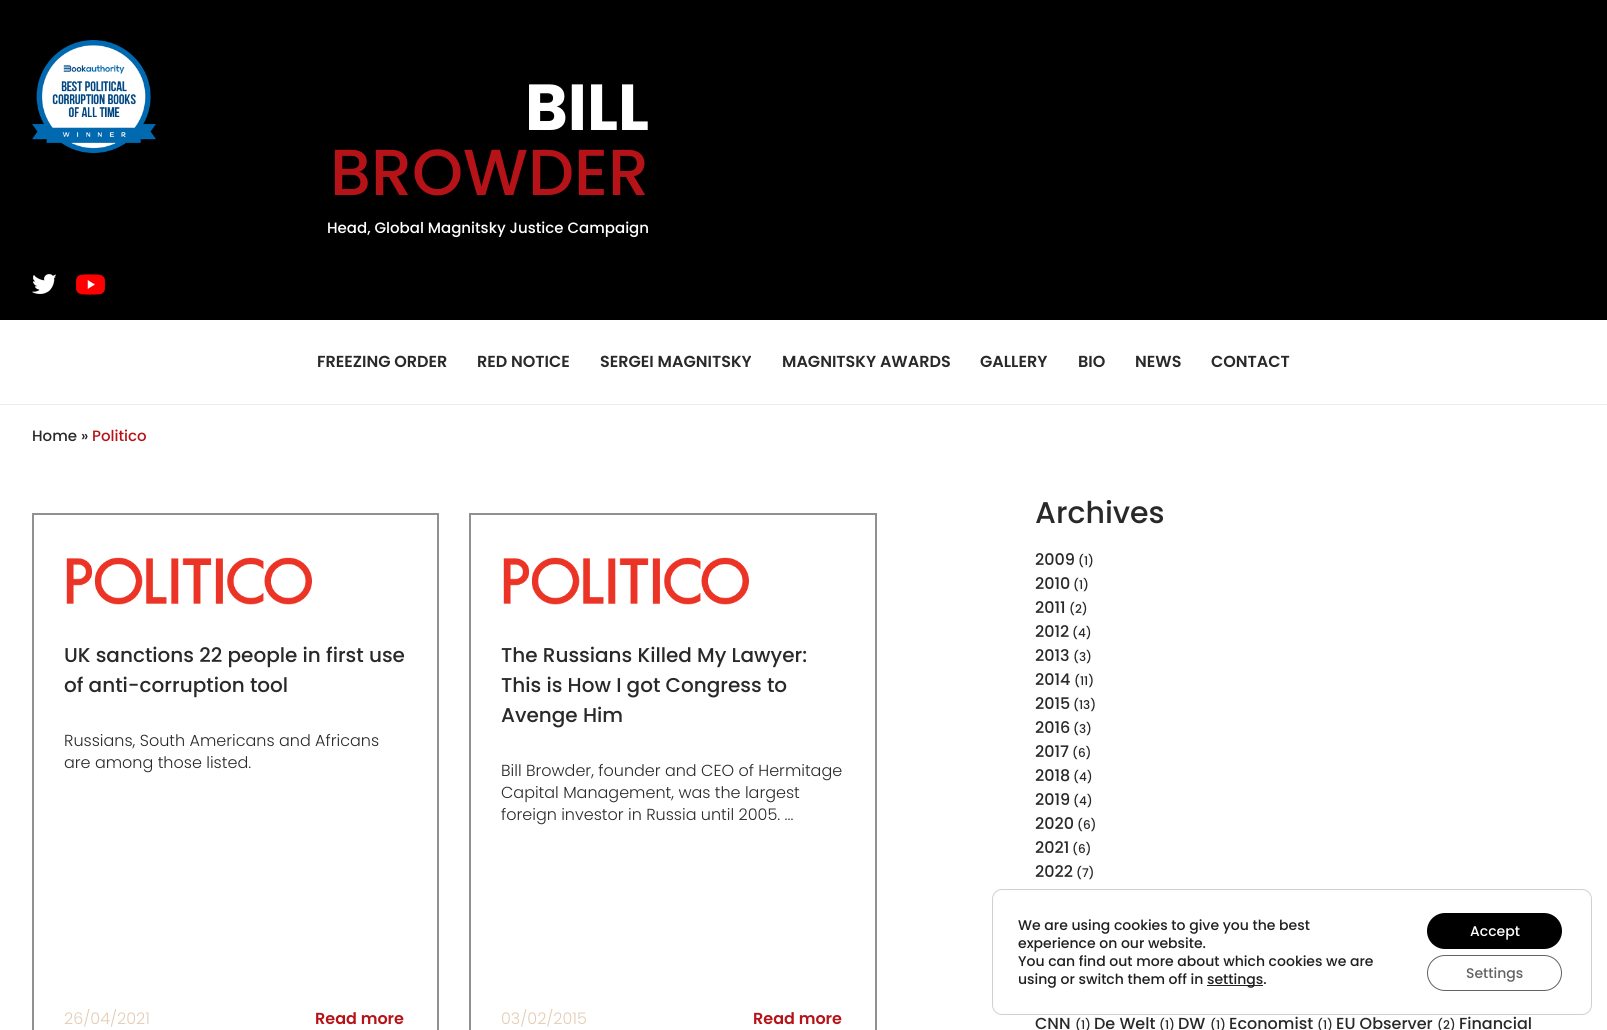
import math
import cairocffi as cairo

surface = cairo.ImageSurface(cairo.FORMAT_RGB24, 1607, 1030)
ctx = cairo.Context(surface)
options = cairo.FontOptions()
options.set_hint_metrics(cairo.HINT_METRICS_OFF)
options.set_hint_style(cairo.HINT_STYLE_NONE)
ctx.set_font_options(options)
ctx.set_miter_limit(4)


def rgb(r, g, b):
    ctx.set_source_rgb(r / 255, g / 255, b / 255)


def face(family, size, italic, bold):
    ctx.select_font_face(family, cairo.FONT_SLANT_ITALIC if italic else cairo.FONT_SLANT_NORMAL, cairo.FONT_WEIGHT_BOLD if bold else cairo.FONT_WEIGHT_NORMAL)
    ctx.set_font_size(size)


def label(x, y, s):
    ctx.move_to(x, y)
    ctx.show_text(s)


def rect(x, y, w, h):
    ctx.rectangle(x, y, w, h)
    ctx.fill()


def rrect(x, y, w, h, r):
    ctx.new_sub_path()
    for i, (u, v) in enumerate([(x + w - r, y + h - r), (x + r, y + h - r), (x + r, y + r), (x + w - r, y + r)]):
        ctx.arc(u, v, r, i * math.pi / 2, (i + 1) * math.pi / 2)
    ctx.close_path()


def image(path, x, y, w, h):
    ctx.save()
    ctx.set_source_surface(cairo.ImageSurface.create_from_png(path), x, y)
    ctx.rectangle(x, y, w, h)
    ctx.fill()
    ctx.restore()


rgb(255, 255, 255)
ctx.paint()
rgb(0, 0, 0)
rect(0, 0, 1607, 320)
image('image0.png', 32, 40, 124, 113)
face('Poppins', 65, 0, 1)
rgb(255, 255, 255)
label(525, 130, 'BILL')
face('Poppins Medium', 65, 0, 0)
rgb(182, 19, 24)
label(330, 195, 'BROWDER')
face('Poppins Medium', 15, 0, 0)
rgb(255, 255, 255)
label(327, 233, 'Head, Global Magnitsky Justice Campaign')
image('image1.png', 32, 274, 24, 20)
image('image2.png', 76, 274, 29, 21)
rgb(237, 237, 237)
rect(0, 404, 1607, 1)
face('Poppins SemiBold', 16, 0, 0)
rgb(41, 41, 41)
label(317, 367, 'FREEZING ORDER')
label(477, 367, 'RED NOTICE')
label(600, 367, 'SERGEI MAGNITSKY')
label(782, 367, 'MAGNITSKY AWARDS')
label(980, 367, 'GALLERY')
label(1078, 367, 'BIO')
label(1135, 367, 'NEWS')
label(1211, 367, 'CONTACT')
face('Poppins Medium', 15, 0, 0)
label(32, 441, 'Home »')
rgb(182, 19, 24)
label(92, 441, 'Politico')
ctx.rectangle(33, 514, 405, 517)
rgb(145, 145, 145)
ctx.stroke()
image('image3.png', 66, 557, 246, 48)
face('Poppins Medium', 20, 0, 0)
rgb(41, 41, 41)
label(64, 662, 'UK sanctions 22 people in first use')
label(64, 692, 'of anti-corruption tool')
face('Poppins Light', 16, 0, 0)
label(64, 746, 'Russians, South Americans and Africans')
label(64, 768, 'are among those listed.')
rgb(228, 204, 180)
label(64, 1024, '26/04/2021')
face('Poppins SemiBold', 16, 0, 0)
rgb(182, 19, 24)
label(315, 1024, 'Read more')
ctx.rectangle(470, 514, 406, 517)
rgb(145, 145, 145)
ctx.stroke()
image('image4.png', 503, 557, 246, 48)
face('Poppins Medium', 20, 0, 0)
rgb(41, 41, 41)
label(501, 662, 'The Russians Killed My Lawyer:')
label(501, 692, 'This is How I got Congress to')
label(501, 722, 'Avenge Him')
face('Poppins Light', 16, 0, 0)
label(501, 776, 'Bill Browder, founder and CEO of Hermitage')
label(501, 798, 'Capital Management, was the largest')
label(501, 820, 'foreign investor in Russia until 2005. ...')
rgb(228, 204, 180)
label(501, 1024, '03/02/2015')
face('Poppins SemiBold', 16, 0, 0)
rgb(182, 19, 24)
label(753, 1024, 'Read more')
face('Poppins Medium', 30, 0, 0)
rgb(41, 41, 41)
label(1035, 523, 'Archives')
face('Poppins Medium', 16, 0, 0)
label(1035, 565, '2009')
face('Poppins Medium', 12, 0, 0)
label(1078, 565, '(1)')
face('Poppins Medium', 16, 0, 0)
label(1035, 589, '2010')
face('Poppins Medium', 12, 0, 0)
label(1073, 589, '(1)')
face('Poppins Medium', 16, 0, 0)
label(1035, 613, '2011')
face('Poppins Medium', 12, 0, 0)
label(1069, 613, '(2)')
face('Poppins Medium', 16, 0, 0)
label(1035, 637, '2012')
face('Poppins Medium', 12, 0, 0)
label(1072, 637, '(4)')
face('Poppins Medium', 16, 0, 0)
label(1035, 661, '2013')
face('Poppins Medium', 12, 0, 0)
label(1073, 661, '(3)')
face('Poppins Medium', 16, 0, 0)
label(1035, 685, '2014')
face('Poppins Medium', 12, 0, 0)
label(1074, 685, '(11)')
face('Poppins Medium', 16, 0, 0)
label(1035, 709, '2015')
face('Poppins Medium', 12, 0, 0)
label(1073, 709, '(13)')
face('Poppins Medium', 16, 0, 0)
label(1035, 733, '2016')
face('Poppins Medium', 12, 0, 0)
label(1073, 733, '(3)')
face('Poppins Medium', 16, 0, 0)
label(1035, 757, '2017')
face('Poppins Medium', 12, 0, 0)
label(1072, 757, '(6)')
face('Poppins Medium', 16, 0, 0)
label(1035, 781, '2018')
face('Poppins Medium', 12, 0, 0)
label(1073, 781, '(4)')
face('Poppins Medium', 16, 0, 0)
label(1035, 805, '2019')
face('Poppins Medium', 12, 0, 0)
label(1073, 805, '(4)')
face('Poppins Medium', 16, 0, 0)
label(1035, 829, '2020')
face('Poppins Medium', 12, 0, 0)
label(1077, 829, '(6)')
face('Poppins Medium', 16, 0, 0)
label(1035, 853, '2021')
face('Poppins Medium', 12, 0, 0)
label(1072, 853, '(6)')
face('Poppins Medium', 16, 0, 0)
label(1035, 877, '2022')
face('Poppins Medium', 12, 0, 0)
label(1076, 877, '(7)')
face('Poppins Medium', 16, 0, 0)
label(1035, 1029, 'CNN')
face('Poppins Medium', 12, 0, 0)
label(1075, 1029, '(1)')
face('Poppins Medium', 16, 0, 0)
label(1094, 1029, 'De Welt')
face('Poppins Medium', 12, 0, 0)
label(1159, 1029, '(1)')
face('Poppins Medium', 16, 0, 0)
label(1178, 1029, 'DW')
face('Poppins Medium', 12, 0, 0)
label(1210, 1029, '(1)')
face('Poppins Medium', 16, 0, 0)
label(1229, 1029, 'Economist')
face('Poppins Medium', 12, 0, 0)
label(1317, 1029, '(1)')
face('Poppins Medium', 16, 0, 0)
label(1336, 1029, 'EU Observer')
face('Poppins Medium', 12, 0, 0)
label(1437, 1029, '(2)')
face('Poppins Medium', 16, 0, 0)
label(1459, 1029, 'Financial')
rrect(992.5, 889.5, 599, 125, 9.5)
rgb(211, 206, 210)
ctx.set_line_width(1)
ctx.stroke()
face('Poppins Medium', 14, 0, 0)
rgb(32, 32, 32)
label(1018, 930, 'We are using cookies to give you the best')
label(1018, 948, 'experience on our website.')
label(1018, 966, 'You can find out more about which cookies we are')
label(1018, 984, 'using or switch them off in')
rect(1207, 985, 56, 1)
label(1207, 984, 'settings.')
rgb(0, 0, 0)
rrect(1427, 913, 135, 36, 18)
ctx.fill()
rgb(255, 255, 255)
label(1470, 936, 'Accept')
rrect(1427.5, 955.5, 134, 35, 17.5)
rgb(99, 99, 99)
ctx.stroke()
label(1466, 978, 'Settings')
surface.write_to_png('render.png')
